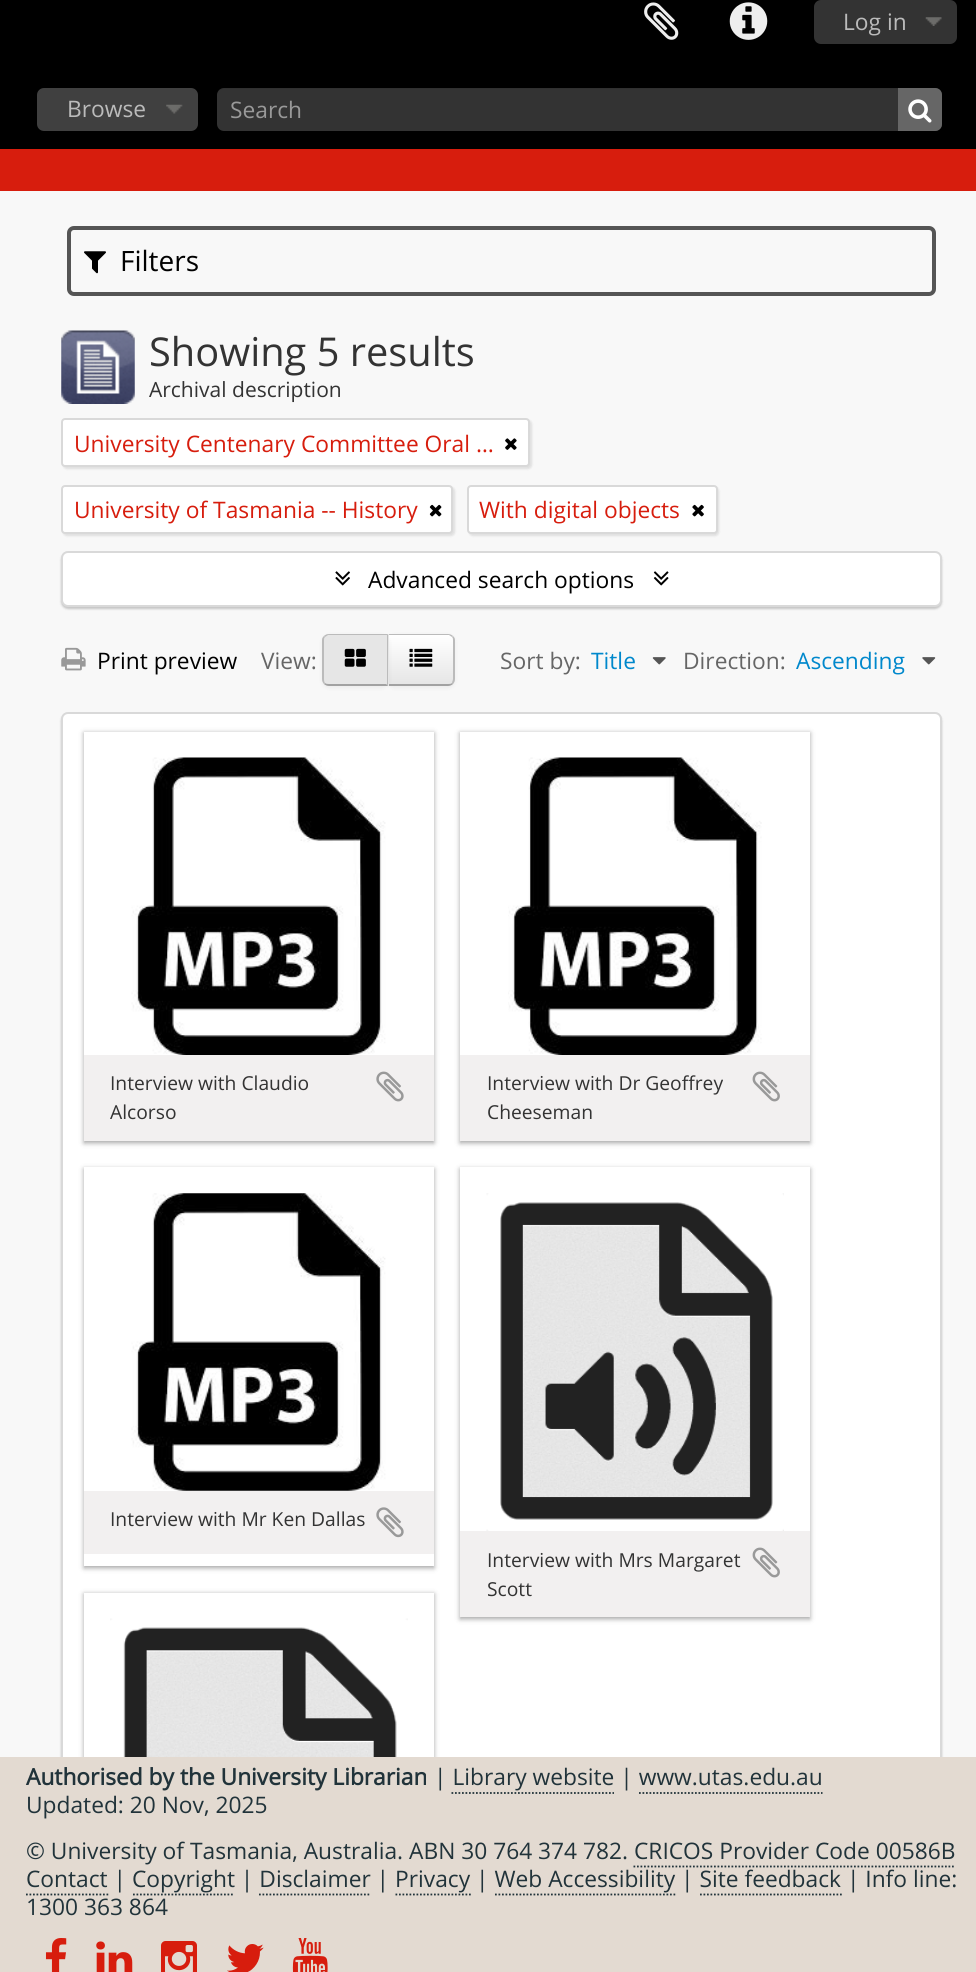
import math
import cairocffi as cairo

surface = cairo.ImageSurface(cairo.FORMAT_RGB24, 976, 1972)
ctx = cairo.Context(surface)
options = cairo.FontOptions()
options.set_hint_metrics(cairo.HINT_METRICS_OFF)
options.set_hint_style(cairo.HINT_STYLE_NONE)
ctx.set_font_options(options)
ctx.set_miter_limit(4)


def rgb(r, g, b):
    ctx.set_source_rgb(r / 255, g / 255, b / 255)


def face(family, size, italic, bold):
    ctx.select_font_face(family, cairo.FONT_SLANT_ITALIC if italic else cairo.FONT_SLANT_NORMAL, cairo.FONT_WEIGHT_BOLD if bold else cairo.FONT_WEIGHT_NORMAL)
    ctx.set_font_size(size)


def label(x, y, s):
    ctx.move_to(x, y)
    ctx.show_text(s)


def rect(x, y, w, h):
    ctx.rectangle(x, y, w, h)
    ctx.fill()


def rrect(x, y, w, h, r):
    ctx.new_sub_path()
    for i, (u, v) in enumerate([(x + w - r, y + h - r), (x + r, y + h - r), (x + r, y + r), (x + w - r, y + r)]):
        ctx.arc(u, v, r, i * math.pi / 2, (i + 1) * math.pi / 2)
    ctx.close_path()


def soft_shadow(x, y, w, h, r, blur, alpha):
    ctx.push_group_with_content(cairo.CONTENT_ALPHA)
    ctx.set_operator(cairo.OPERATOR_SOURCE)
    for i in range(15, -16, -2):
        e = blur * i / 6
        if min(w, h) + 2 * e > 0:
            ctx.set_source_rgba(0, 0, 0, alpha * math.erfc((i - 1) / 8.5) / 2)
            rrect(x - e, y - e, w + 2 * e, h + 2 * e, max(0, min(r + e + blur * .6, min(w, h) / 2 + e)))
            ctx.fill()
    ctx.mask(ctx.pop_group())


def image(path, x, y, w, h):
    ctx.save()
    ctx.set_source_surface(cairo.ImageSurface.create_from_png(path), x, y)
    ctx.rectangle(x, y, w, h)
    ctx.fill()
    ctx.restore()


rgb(248, 248, 248)
ctx.paint()
rgb(0, 0, 0)
rect(0, 0, 976, 149)
image('image0.png', 644, 2, 35, 38)
image('image1.png', 729, 2, 39, 38)
rgb(51, 51, 51)
rrect(814, 0, 143, 44, 7)
ctx.fill()
image('image2.png', 925, 17, 17, 9)
face('Open Sans', 22.75, 0, 0)
rgb(187, 187, 187)
label(843, 30, 'Log in')
rgb(64, 64, 64)
rrect(37, 88, 161, 43, 7)
ctx.fill()
image('image3.png', 166, 104, 17, 10)
rgb(187, 187, 187)
label(67, 117, 'Browse')
rgb(51, 51, 51)
rrect(217, 88, 725, 43, 7)
ctx.fill()
ctx.set_source_rgba(0, 0, 0, 0.07)
ctx.new_path()
ctx.move_to(224, 89)
ctx.line_to(934, 89)
ctx.curve_to(938, 89, 942, 92, 942, 96)
ctx.curve_to(942, 92, 940, 88, 935, 88)
ctx.line_to(224, 88)
ctx.curve_to(219, 88, 217, 92, 217, 96)
ctx.curve_to(217, 92, 220, 89, 224, 89)
ctx.close_path()
ctx.fill()
rgb(153, 153, 153)
label(230, 118, 'Search')
rgb(102, 102, 102)
ctx.new_path()
ctx.move_to(898, 88)
ctx.line_to(935, 88)
ctx.curve_to(939, 88, 942, 91, 942, 95)
ctx.line_to(942, 124)
ctx.curve_to(942, 128, 939, 131, 935, 131)
ctx.line_to(898, 131)
ctx.close_path()
ctx.fill()
image('image4.png', 908, 99, 24, 24)
rgb(215, 29, 13)
rect(0, 149, 976, 42)
rrect(69, 228, 865, 66, 5)
rgb(85, 85, 85)
ctx.set_line_width(4)
ctx.stroke()
image('image5.png', 84, 251, 22, 23)
face('Open Sans', 28, 0, 0)
rgb(0, 0, 0)
label(120, 271, 'Filters')
image('image6.png', 61, 330, 74, 74)
face('Open Sans', 39.75, 0, 0)
rgb(51, 51, 51)
label(149, 366, 'Showing 5 results')
face('Open Sans', 21, 0, 0)
label(149, 397, 'Archival description')
rgb(0, 0, 0)
soft_shadow(63, 420, 469, 49, 4, 1, 0.1)
rgb(255, 255, 255)
rrect(62, 419, 467, 47, 3)
ctx.fill_preserve()
rgb(217, 217, 217)
ctx.set_line_width(2)
ctx.stroke()
face('Open Sans', 22.75, 0, 0)
rgb(215, 29, 13)
label(74, 452, 'University Centenary Committee Oral …')
image('image7.png', 505, 438, 12, 12)
rgb(0, 0, 0)
soft_shadow(63, 487, 392, 49, 4, 1, 0.1)
rgb(255, 255, 255)
rrect(62, 486, 390, 47, 3)
ctx.fill_preserve()
rgb(217, 217, 217)
ctx.stroke()
rgb(215, 29, 13)
label(74, 518, 'University of Tasmania -- History')
image('image8.png', 429, 504, 13, 13)
rgb(0, 0, 0)
soft_shadow(469, 487, 250, 49, 4, 1, 0.1)
rgb(255, 255, 255)
rrect(468, 486, 249, 47, 3)
ctx.fill_preserve()
rgb(217, 217, 217)
ctx.stroke()
rgb(215, 29, 13)
label(479, 518, 'With digital objects')
image('image9.png', 692, 504, 12, 13)
rgb(0, 0, 0)
soft_shadow(61, 553, 881, 56, 7, 1, 0.2)
rgb(255, 255, 255)
rrect(62, 552, 879, 54, 6)
ctx.fill_preserve()
rgb(217, 217, 217)
ctx.stroke()
image('image10.png', 335, 571, 15, 15)
rgb(0, 0, 0)
label(368, 588, 'Advanced search options')
image('image11.png', 653, 571, 16, 15)
image('image12.png', 61, 647, 25, 24)
label(97, 669, 'Print preview')
rgb(102, 102, 102)
label(261, 669, 'View:')
rgb(0, 0, 0)
soft_shadow(387, 635, 68, 53, 7, 2, 0.05)
ctx.save()
ctx.new_path()
ctx.move_to(387, 634)
ctx.line_to(448, 634)
ctx.curve_to(452, 634, 455, 637, 455, 641)
ctx.line_to(455, 679)
ctx.curve_to(455, 683, 452, 686, 448, 686)
ctx.line_to(387, 686)
ctx.close_path()
ctx.clip()
gradient = cairo.LinearGradient(421, 635, 421, 684)
gradient.add_color_stop_rgba(0, 1, 1, 1, 1)
gradient.add_color_stop_rgba(1, 0.902, 0.902, 0.902, 1)
ctx.set_source(gradient)
rect(389, 635, 66, 49)
ctx.restore()
rgb(187, 187, 187)
ctx.new_path()
ctx.move_to(453, 636)
ctx.curve_to(452, 635, 450, 634, 448, 634)
ctx.line_to(387, 634)
ctx.line_to(388, 635)
ctx.line_to(449, 635)
ctx.line_to(452, 637)
ctx.close_path()
ctx.fill()
ctx.new_path()
ctx.move_to(453, 636)
ctx.curve_to(454, 637, 455, 638, 455, 640)
ctx.line_to(455, 679)
ctx.curve_to(455, 681, 454, 683, 453, 684)
ctx.line_to(452, 683)
ctx.curve_to(452, 682, 453, 680, 453, 679)
ctx.line_to(453, 640)
ctx.curve_to(453, 639, 453, 638, 452, 637)
ctx.close_path()
ctx.fill()
rgb(162, 162, 162)
ctx.new_path()
ctx.move_to(387, 686)
ctx.line_to(448, 686)
ctx.curve_to(450, 686, 452, 685, 453, 684)
ctx.line_to(452, 683)
ctx.curve_to(451, 684, 450, 684, 448, 684)
ctx.line_to(389, 684)
ctx.close_path()
ctx.fill()
rgb(0, 0, 0)
soft_shadow(322, 635, 67, 53, 7, 2, 0.05)
rgb(230, 230, 230)
ctx.new_path()
ctx.move_to(329, 634)
ctx.line_to(389, 634)
ctx.line_to(389, 686)
ctx.line_to(329, 686)
ctx.curve_to(325, 686, 322, 683, 322, 679)
ctx.line_to(322, 641)
ctx.curve_to(322, 637, 325, 634, 329, 634)
ctx.close_path()
ctx.fill()
rgb(187, 187, 187)
ctx.new_path()
ctx.move_to(329, 634)
ctx.curve_to(327, 634, 325, 635, 324, 636)
ctx.line_to(325, 637)
ctx.line_to(328, 635)
ctx.line_to(387, 635)
ctx.line_to(388, 634)
ctx.close_path()
ctx.fill()
ctx.new_path()
ctx.move_to(388, 686)
ctx.line_to(388, 634)
ctx.line_to(387, 635)
ctx.line_to(387, 684)
ctx.line_to(386, 684)
ctx.close_path()
ctx.fill()
rgb(162, 162, 162)
ctx.new_path()
ctx.move_to(329, 686)
ctx.line_to(388, 686)
ctx.line_to(386, 684)
ctx.line_to(329, 684)
ctx.curve_to(328, 684, 326, 684, 325, 683)
ctx.line_to(324, 684)
ctx.curve_to(325, 685, 327, 686, 329, 686)
ctx.close_path()
ctx.fill()
rgb(187, 187, 187)
ctx.new_path()
ctx.move_to(322, 640)
ctx.line_to(322, 679)
ctx.curve_to(322, 681, 323, 683, 324, 684)
ctx.line_to(325, 683)
ctx.curve_to(324, 682, 324, 680, 324, 679)
ctx.line_to(324, 640)
ctx.curve_to(324, 639, 324, 638, 325, 637)
ctx.line_to(324, 636)
ctx.curve_to(323, 637, 322, 638, 322, 640)
ctx.close_path()
ctx.fill()
image('image13.png', 344, 648, 22, 19)
image('image14.png', 409, 648, 24, 19)
rgb(102, 102, 102)
label(500, 669, 'Sort by:')
rgb(0, 136, 204)
label(591, 669, 'Title')
image('image15.png', 652, 657, 14, 8)
rgb(102, 102, 102)
label(683, 669, 'Direction:')
rgb(0, 136, 204)
label(796, 669, 'Ascending')
image('image16.png', 922, 657, 14, 8)
rgb(0, 0, 0)
soft_shadow(61, 714, 881, 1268, 7, 1, 0.2)
rgb(255, 255, 255)
rrect(62, 713, 879, 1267, 6)
ctx.fill_preserve()
rgb(217, 217, 217)
ctx.stroke()
ctx.save()
ctx.set_fill_rule(cairo.FILL_RULE_EVEN_ODD)
ctx.new_path()
ctx.move_to(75, 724)
ctx.line_to(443, 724)
ctx.line_to(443, 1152)
ctx.line_to(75, 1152)
ctx.close_path()
ctx.move_to(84, 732)
ctx.line_to(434, 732)
ctx.line_to(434, 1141)
ctx.line_to(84, 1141)
ctx.close_path()
ctx.clip()
rgb(25, 25, 25)
soft_shadow(84, 733, 350, 410, 0, 2.5, 0.4)
ctx.restore()
image('image17.png', 131, 757, 255, 298)
rgb(242, 240, 240)
rect(84, 1055, 350, 86)
face('Open Sans', 19.25, 0, 0)
rgb(51, 51, 51)
label(110, 1090, 'Interview with Claudio')
image('image18.png', 376, 1071, 28, 31)
label(110, 1119, 'Alcorso')
rgb(25, 25, 25)
soft_shadow(460, 733, 350, 410, 0, 2.5, 0.4)
rgb(255, 255, 255)
rect(460, 732, 350, 323)
image('image19.png', 508, 757, 254, 298)
rgb(242, 240, 240)
rect(460, 1055, 350, 86)
rgb(51, 51, 51)
label(487, 1090, 'Interview with Dr Geoffrey')
image('image20.png', 752, 1071, 28, 31)
label(487, 1119, 'Cheeseman')
rgb(25, 25, 25)
soft_shadow(84, 1169, 350, 399, 0, 2.5, 0.4)
rgb(255, 255, 255)
rect(84, 1167, 350, 399)
image('image21.png', 131, 1193, 255, 298)
rgb(242, 240, 240)
rect(84, 1491, 350, 63)
rgb(51, 51, 51)
label(110, 1526, 'Interview with Mr Ken Dallas')
image('image22.png', 376, 1507, 28, 31)
rgb(25, 25, 25)
soft_shadow(460, 1169, 350, 450, 0, 2.5, 0.4)
rgb(255, 255, 255)
rect(460, 1167, 350, 364)
image('image23.png', 486, 1193, 298, 338)
rgb(242, 240, 240)
rect(460, 1531, 350, 86)
rgb(51, 51, 51)
label(487, 1567, 'Interview with Mrs Margaret')
image('image20.png', 752, 1547, 28, 31)
label(487, 1596, 'Scott')
ctx.save()
ctx.set_fill_rule(cairo.FILL_RULE_EVEN_ODD)
ctx.new_path()
ctx.move_to(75, 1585)
ctx.line_to(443, 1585)
ctx.line_to(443, 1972)
ctx.line_to(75, 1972)
ctx.close_path()
ctx.move_to(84, 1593)
ctx.line_to(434, 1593)
ctx.line_to(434, 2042)
ctx.line_to(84, 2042)
ctx.close_path()
ctx.clip()
rgb(25, 25, 25)
soft_shadow(84, 1594, 350, 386, 0, 2.5, 0.4)
ctx.restore()
image('image24.png', 110, 1618, 298, 139)
rgb(227, 218, 209)
rect(0, 1757, 976, 215)
face('Open Sans', 22.75, 0, 1)
rgb(33, 51, 58)
label(26, 1785, 'Authorised by the University Librarian')
face('Open Sans', 22.75, 0, 0)
label(434, 1785, '| Library website | www.utas.edu.au')
ctx.new_path()
ctx.move_to(451.5, 1793)
ctx.line_to(614, 1793)
ctx.set_line_width(1.8)
ctx.set_dash([1.75, 1.75])
ctx.stroke()
ctx.new_path()
ctx.move_to(639, 1793)
ctx.line_to(822.5, 1793)
ctx.stroke()
label(26, 1813, 'Updated: 20 Nov, 2025')
label(26, 1859, '© University of Tasmania, Australia. ABN 30 764 374 782. CRICOS Provider Code 00586B')
ctx.new_path()
ctx.move_to(633.5, 1866.5)
ctx.line_to(955.5, 1866.5)
ctx.stroke()
label(26, 1887, 'Contact | Copyright | Disclaimer | Privacy | Web Accessibility | Site feedback | Info line:')
ctx.new_path()
ctx.move_to(26, 1894.5)
ctx.line_to(108.5, 1894.5)
ctx.stroke()
ctx.new_path()
ctx.move_to(133, 1894.5)
ctx.line_to(234.5, 1894.5)
ctx.stroke()
ctx.new_path()
ctx.move_to(259, 1894.5)
ctx.line_to(371, 1894.5)
ctx.stroke()
ctx.new_path()
ctx.move_to(395.5, 1894.5)
ctx.line_to(471, 1894.5)
ctx.stroke()
ctx.new_path()
ctx.move_to(495, 1894.5)
ctx.line_to(675.5, 1894.5)
ctx.stroke()
ctx.new_path()
ctx.move_to(700, 1894.5)
ctx.line_to(842, 1894.5)
ctx.stroke()
label(26, 1915, '1300 363 864')
image('image25.png', 45, 1938, 22, 34)
image('image26.png', 96, 1941, 37, 31)
image('image27.png', 161, 1941, 36, 31)
image('image28.png', 227, 1944, 37, 28)
image('image29.png', 292, 1938, 36, 34)
surface.write_to_png('render.png')
